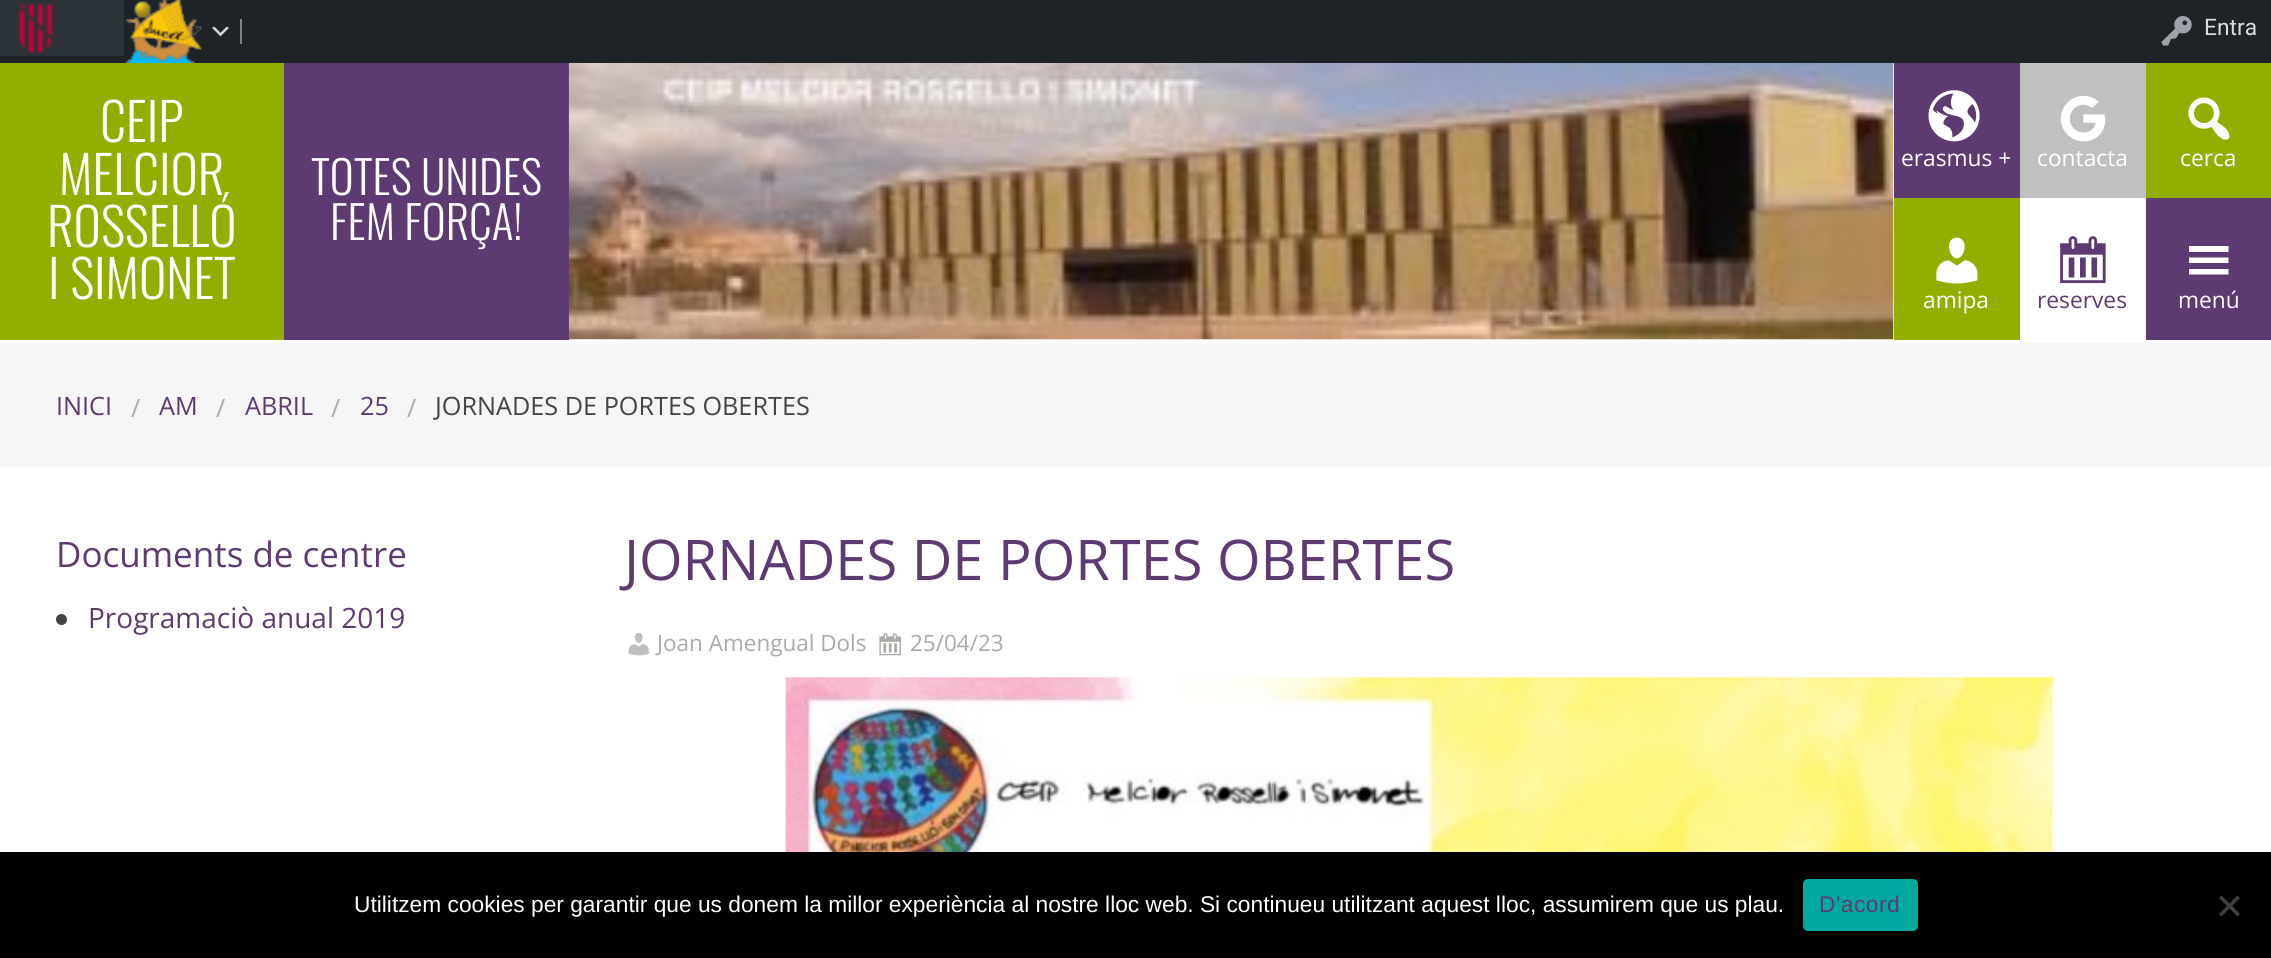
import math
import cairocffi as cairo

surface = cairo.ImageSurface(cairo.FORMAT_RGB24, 2271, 958)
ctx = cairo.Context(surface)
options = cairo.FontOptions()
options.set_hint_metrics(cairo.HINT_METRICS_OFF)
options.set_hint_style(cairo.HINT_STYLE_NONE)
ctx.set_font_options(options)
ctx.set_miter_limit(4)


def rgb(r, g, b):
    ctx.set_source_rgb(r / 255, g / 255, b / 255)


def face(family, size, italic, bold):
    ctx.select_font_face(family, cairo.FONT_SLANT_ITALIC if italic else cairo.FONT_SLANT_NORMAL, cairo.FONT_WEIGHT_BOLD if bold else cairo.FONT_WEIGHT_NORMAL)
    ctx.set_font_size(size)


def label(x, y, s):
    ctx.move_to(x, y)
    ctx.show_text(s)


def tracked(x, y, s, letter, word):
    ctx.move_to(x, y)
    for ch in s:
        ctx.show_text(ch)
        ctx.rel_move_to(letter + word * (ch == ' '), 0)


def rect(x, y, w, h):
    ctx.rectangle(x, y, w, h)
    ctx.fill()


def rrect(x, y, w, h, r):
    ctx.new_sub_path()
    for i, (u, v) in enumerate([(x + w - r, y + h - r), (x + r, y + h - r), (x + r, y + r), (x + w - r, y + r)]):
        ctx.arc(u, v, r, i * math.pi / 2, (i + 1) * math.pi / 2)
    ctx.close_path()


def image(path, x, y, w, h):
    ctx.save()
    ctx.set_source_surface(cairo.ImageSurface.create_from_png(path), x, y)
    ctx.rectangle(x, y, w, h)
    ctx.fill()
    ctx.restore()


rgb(255, 255, 255)
ctx.paint()
rgb(29, 35, 39)
rect(0, 0, 2271, 63)
rgb(44, 51, 56)
rect(0, 0, 124, 56)
image('image0.png', 18, 3, 36, 52)
image('image1.png', 125, 0, 77, 63)
rgb(128, 128, 128)
rect(240, 19, 2, 25)
image('image2.png', 212, 26, 17, 11)
image('image3.png', 2161, 16, 31, 30)
face('Roboto', 22.75, 0, 0)
rgb(221, 221, 221)
label(2204, 35, 'Entra')
rgb(146, 174, 1)
rect(0, 63, 284, 277)
face('Oswald Light', 52, 0, 0)
rgb(255, 255, 255)
label(100, 142, 'CEIP')
label(59, 195, 'MELCIOR')
label(47, 247, 'ROSSELLÓ')
label(48, 299, 'I SIMONET')
rgb(94, 58, 115)
rect(284, 63, 285, 277)
face('Oswald Light', 45.5, 0, 0)
rgb(255, 255, 255)
label(311, 195, 'TOTES UNIDES')
label(330, 240, 'FEM FORÇA!')
image('image4.png', 568, 63, 1326, 277)
rgb(94, 58, 115)
rect(1894, 63, 126, 135)
image('image5.png', 1928, 90, 52, 52)
face('Open Sans', 22.75, 0, 0)
rgb(255, 255, 255)
label(1901, 166, 'erasmus +')
rgb(192, 192, 192)
rect(2020, 63, 126, 135)
image('image6.png', 2060, 95, 46, 47)
rgb(255, 255, 255)
label(2037, 166, 'contacta')
rgb(146, 174, 1)
rect(2146, 63, 125, 135)
image('image7.png', 2188, 97, 42, 43)
rgb(255, 255, 255)
label(2180, 166, 'cerca')
rgb(146, 174, 1)
rect(1894, 198, 126, 142)
image('image8.png', 1936, 237, 42, 47)
rgb(255, 255, 255)
label(1923, 308, 'amipa')
image('image9.png', 2060, 236, 46, 48)
rgb(94, 58, 115)
label(2037, 308, 'reserves')
rect(2146, 198, 125, 142)
rgb(255, 255, 255)
ctx.new_path()
ctx.move_to(2189, 274.5)
ctx.line_to(2228.5, 274.5)
ctx.line_to(2228.5, 269)
ctx.line_to(2189, 269)
ctx.close_path()
ctx.move_to(2189, 246)
ctx.line_to(2189, 252)
ctx.line_to(2228.5, 252)
ctx.line_to(2228.5, 246)
ctx.close_path()
ctx.move_to(2189, 263)
ctx.line_to(2228.5, 263)
ctx.line_to(2228.5, 257.5)
ctx.line_to(2189, 257.5)
ctx.close_path()
ctx.fill()
label(2178, 308, 'menú')
rgb(246, 246, 246)
rect(0, 343, 2271, 124)
face('Open Sans', 25.25, 0, 0)
rgb(94, 58, 115)
label(56, 415, 'INICI')
rgb(170, 170, 170)
label(131, 417, '/')
rgb(94, 58, 115)
label(159, 415, 'AM')
rgb(170, 170, 170)
label(216, 417, '/')
rgb(94, 58, 115)
label(245, 415, 'ABRIL')
rgb(170, 170, 170)
label(331, 417, '/')
rgb(94, 58, 115)
label(360, 415, '25')
rgb(170, 170, 170)
label(407, 417, '/')
rgb(68, 68, 68)
label(435, 415, 'JORNADES DE PORTES OBERTES')
face('Open Sans', 35, 0, 0)
rgb(94, 58, 115)
label(56, 567, 'Documents de centre')
rgb(68, 68, 68)
ctx.new_path()
ctx.arc(61.5, 619.5, 5.5, 0, 2 * math.pi)
ctx.fill()
face('Open Sans', 28, 0, 0)
rgb(94, 58, 115)
label(88, 628, 'Programaciò anual 2019')
face('Open Sans', 56, 0, 0)
label(624, 580, 'JORNADES DE PORTES OBERTES')
image('image10.png', 628, 632, 21, 24)
face('Open Sans', 22.5, 0, 0)
rgb(170, 170, 170)
label(657, 651, 'Joan Amengual Dols')
image('image11.png', 879, 633, 22, 23)
label(910, 651, '25/04/23')
image('image12.png', 785, 677, 1268, 175)
rgb(0, 0, 0)
rect(0, 852, 2271, 106)
face('Liberation Sans', 22.75, 0, 0)
rgb(255, 255, 255)
label(354, 912, 'Utilitzem cookies per garantir que us donem la millor experiència al nostre lloc web. Si continueu utilitzant aquest lloc, assumirem que us plau.')
rgb(0, 169, 157)
rrect(1803, 879, 115, 52, 5)
ctx.fill()
rgb(94, 58, 115)
tracked(1819, 912, 'D\'acord', 0.5, 0)
rgb(64, 64, 64)
ctx.new_path()
ctx.move_to(2237.5, 895.5)
ctx.line_to(2240, 898)
ctx.line_to(2221.5, 916.5)
ctx.line_to(2219, 914)
ctx.close_path()
ctx.fill()
ctx.new_path()
ctx.move_to(2219, 898)
ctx.line_to(2221.5, 895.5)
ctx.line_to(2240, 914)
ctx.line_to(2237.5, 916.5)
ctx.close_path()
ctx.fill()
surface.write_to_png('render.png')
